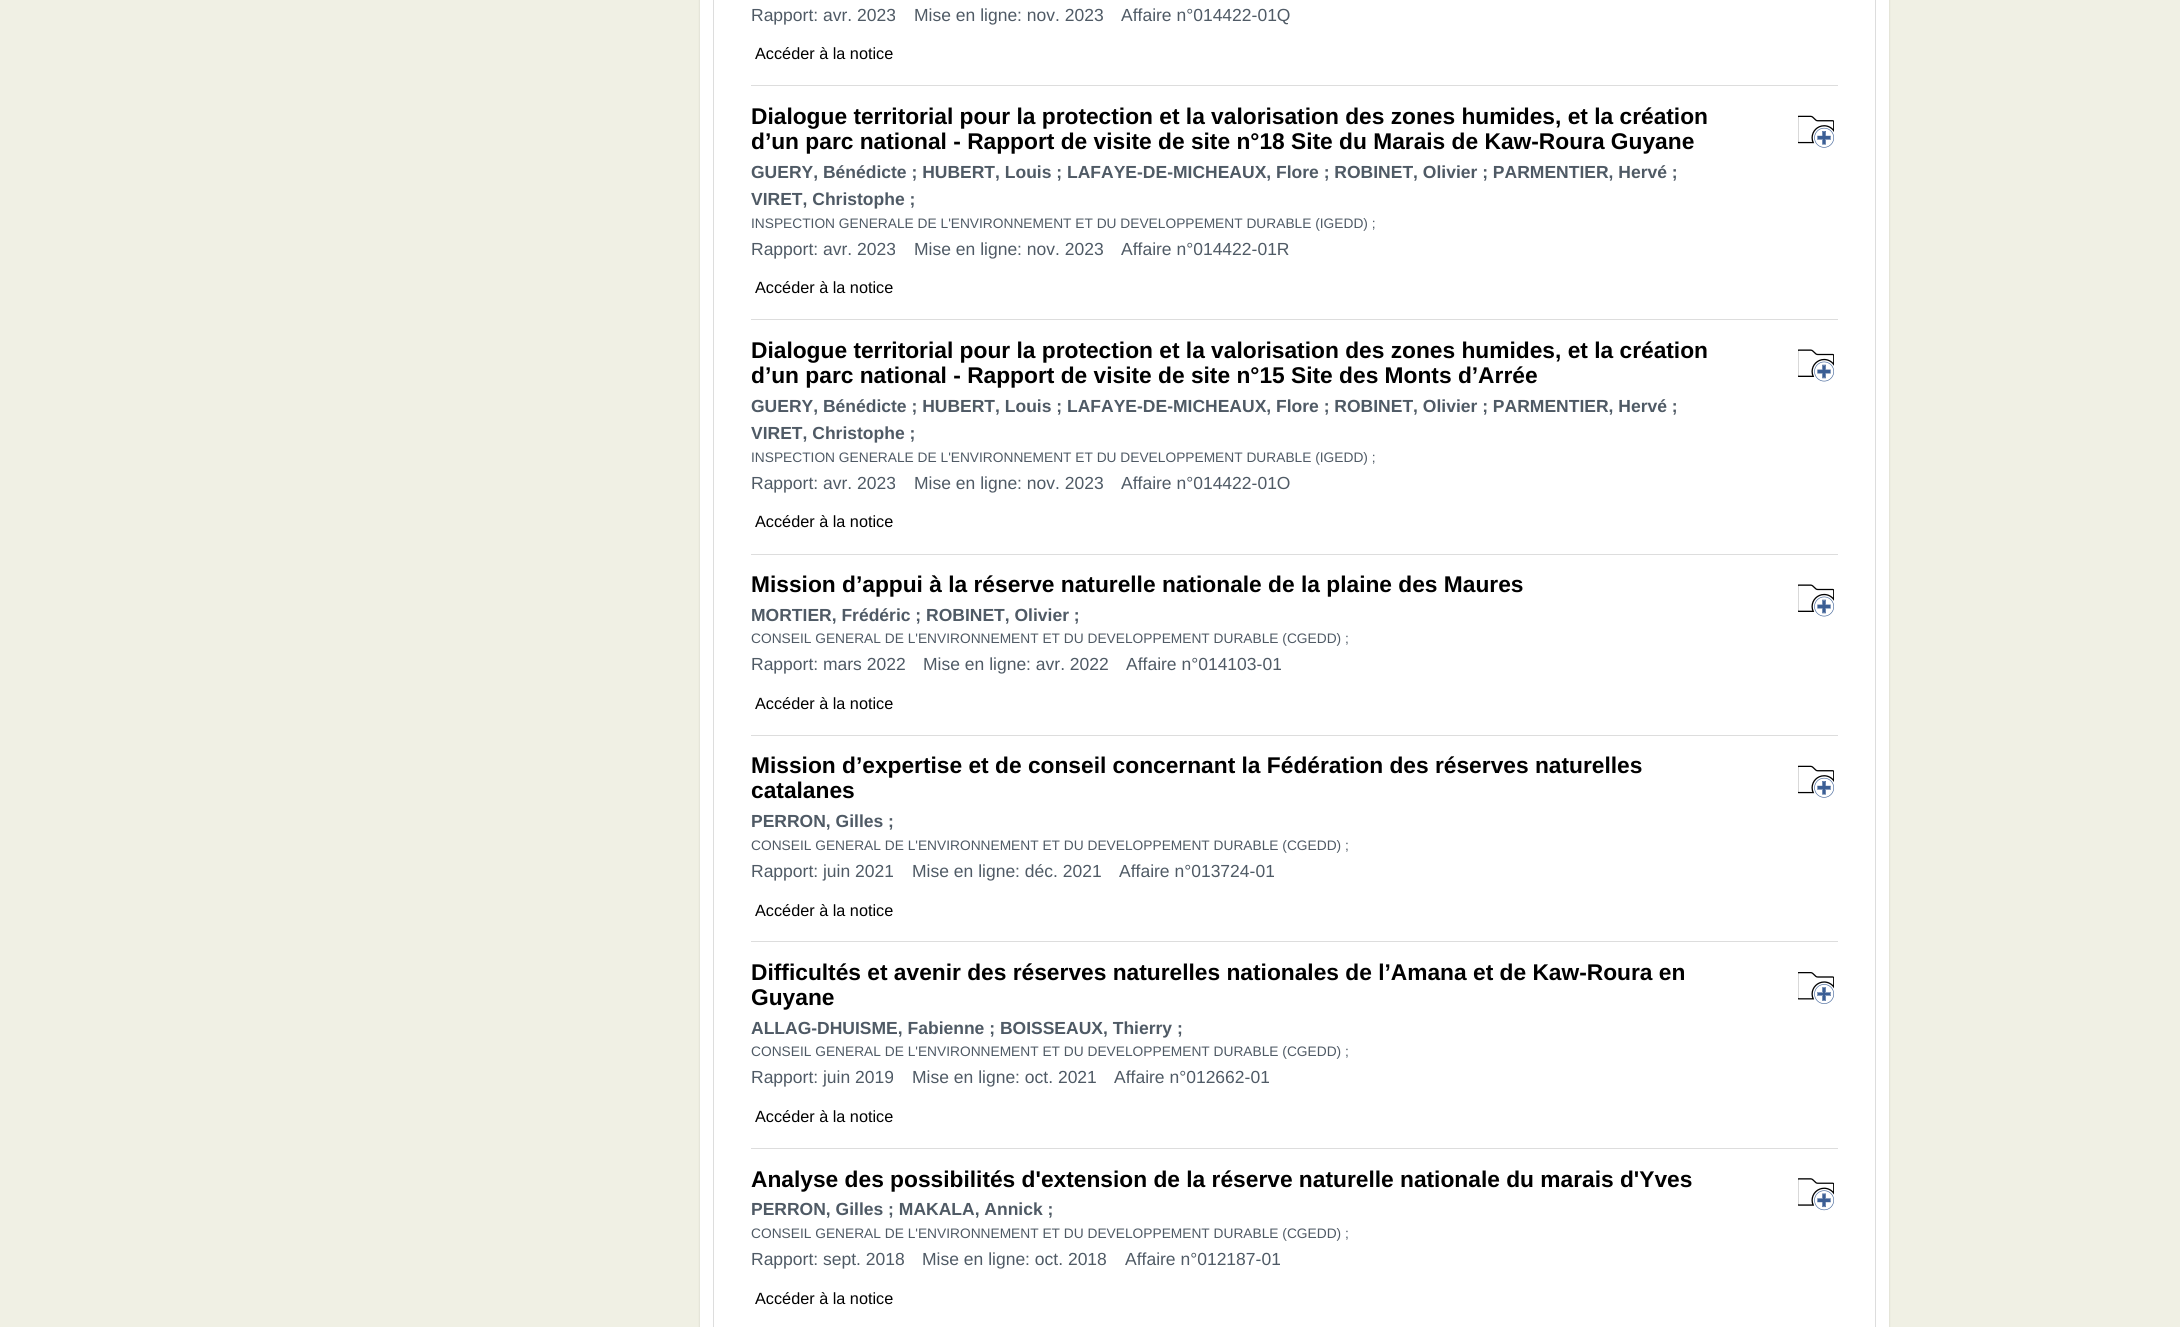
import math
import cairocffi as cairo

surface = cairo.ImageSurface(cairo.FORMAT_RGB24, 2180, 1327)
ctx = cairo.Context(surface)
options = cairo.FontOptions()
options.set_hint_metrics(cairo.HINT_METRICS_OFF)
options.set_hint_style(cairo.HINT_STYLE_NONE)
ctx.set_font_options(options)
ctx.set_miter_limit(4)


def rgb(r, g, b):
    ctx.set_source_rgb(r / 255, g / 255, b / 255)


def face(family, size, italic, bold):
    ctx.select_font_face(family, cairo.FONT_SLANT_ITALIC if italic else cairo.FONT_SLANT_NORMAL, cairo.FONT_WEIGHT_BOLD if bold else cairo.FONT_WEIGHT_NORMAL)
    ctx.set_font_size(size)


def label(x, y, s):
    ctx.move_to(x, y)
    ctx.show_text(s)


def rect(x, y, w, h):
    ctx.rectangle(x, y, w, h)
    ctx.fill()


def rrect(x, y, w, h, r):
    ctx.new_sub_path()
    for i, (u, v) in enumerate([(x + w - r, y + h - r), (x + r, y + h - r), (x + r, y + r), (x + w - r, y + r)]):
        ctx.arc(u, v, r, i * math.pi / 2, (i + 1) * math.pi / 2)
    ctx.close_path()


def soft_shadow(x, y, w, h, r, blur, alpha):
    ctx.push_group_with_content(cairo.CONTENT_ALPHA)
    ctx.set_operator(cairo.OPERATOR_SOURCE)
    for i in range(15, -16, -2):
        e = blur * i / 6
        if min(w, h) + 2 * e > 0:
            ctx.set_source_rgba(0, 0, 0, alpha * math.erfc((i - 1) / 8.5) / 2)
            rrect(x - e, y - e, w + 2 * e, h + 2 * e, max(0, min(r + e + blur * .6, min(w, h) / 2 + e)))
            ctx.fill()
    ctx.mask(ctx.pop_group())


def image(path, x, y, w, h):
    ctx.save()
    ctx.set_source_surface(cairo.ImageSurface.create_from_png(path), x, y)
    ctx.rectangle(x, y, w, h)
    ctx.fill()
    ctx.restore()


rgb(240, 240, 228)
ctx.paint()
rgb(0, 0, 0)
soft_shadow(700, -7, 1189, 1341, 4, 1, 0.15)
rgb(255, 255, 255)
rect(700, 0, 1189, 1327)
ctx.rectangle(713.5, -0.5, 1162, 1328)
rgb(221, 221, 221)
ctx.set_line_width(1)
ctx.stroke()
face('Liberation Sans', 17.5, 0, 0)
rgb(79, 90, 101)
label(751, 21, 'Rapport: avr. 2023')
label(914, 21, 'Mise en ligne: nov. 2023')
label(1121, 21, 'Affaire n°014422-01Q')
face('Liberation Sans', 16.25, 0, 0)
rgb(0, 0, 0)
label(755, 59, 'Accéder à la notice')
rgb(221, 221, 221)
rect(751, 85, 1087, 1)
face('Liberation Sans', 22.75, 0, 1)
rgb(0, 0, 0)
label(751, 124, 'Dialogue territorial pour la protection et la valorisation des zones humides, et la création')
label(751, 149, 'd’un parc national - Rapport de visite de site n°18 Site du Marais de Kaw-Roura Guyane')
face('Liberation Sans', 17.5, 0, 1)
rgb(79, 90, 101)
label(751, 178, 'GUERY, Bénédicte ; HUBERT, Louis ; LAFAYE-DE-MICHEAUX, Flore ; ROBINET, Olivier ; PARMENTIER, Hervé ;')
label(751, 205, 'VIRET, Christophe ;')
face('Liberation Sans', 13.75, 0, 0)
label(751, 228, 'INSPECTION GENERALE DE L\'ENVIRONNEMENT ET DU DEVELOPPEMENT DURABLE (IGEDD) ;')
face('Liberation Sans', 17.5, 0, 0)
label(751, 255, 'Rapport: avr. 2023')
label(914, 255, 'Mise en ligne: nov. 2023')
label(1121, 255, 'Affaire n°014422-01R')
face('Liberation Sans', 16.25, 0, 0)
rgb(0, 0, 0)
label(755, 293, 'Accéder à la notice')
image('image0.png', 1798, 115, 36, 33)
rgb(221, 221, 221)
rect(751, 319, 1087, 1)
face('Liberation Sans', 22.75, 0, 1)
rgb(0, 0, 0)
label(751, 358, 'Dialogue territorial pour la protection et la valorisation des zones humides, et la création')
label(751, 383, 'd’un parc national - Rapport de visite de site n°15 Site des Monts d’Arrée')
face('Liberation Sans', 17.5, 0, 1)
rgb(79, 90, 101)
label(751, 412, 'GUERY, Bénédicte ; HUBERT, Louis ; LAFAYE-DE-MICHEAUX, Flore ; ROBINET, Olivier ; PARMENTIER, Hervé ;')
label(751, 439, 'VIRET, Christophe ;')
face('Liberation Sans', 13.75, 0, 0)
label(751, 462, 'INSPECTION GENERALE DE L\'ENVIRONNEMENT ET DU DEVELOPPEMENT DURABLE (IGEDD) ;')
face('Liberation Sans', 17.5, 0, 0)
label(751, 489, 'Rapport: avr. 2023')
label(914, 489, 'Mise en ligne: nov. 2023')
label(1121, 489, 'Affaire n°014422-01O')
face('Liberation Sans', 16.25, 0, 0)
rgb(0, 0, 0)
label(755, 527, 'Accéder à la notice')
image('image1.png', 1798, 349, 36, 33)
rgb(221, 221, 221)
rect(751, 554, 1087, 1)
face('Liberation Sans', 22.75, 0, 1)
rgb(0, 0, 0)
label(751, 592, 'Mission d’appui à la réserve naturelle nationale de la plaine des Maures')
face('Liberation Sans', 17.5, 0, 1)
rgb(79, 90, 101)
label(751, 621, 'MORTIER, Frédéric ; ROBINET, Olivier ;')
face('Liberation Sans', 13.75, 0, 0)
label(751, 643, 'CONSEIL GENERAL DE L\'ENVIRONNEMENT ET DU DEVELOPPEMENT DURABLE (CGEDD) ;')
face('Liberation Sans', 17.5, 0, 0)
label(751, 670, 'Rapport: mars 2022')
label(923, 670, 'Mise en ligne: avr. 2022')
label(1126, 670, 'Affaire n°014103-01')
face('Liberation Sans', 16.25, 0, 0)
rgb(0, 0, 0)
label(755, 709, 'Accéder à la notice')
image('image1.png', 1798, 584, 36, 33)
rgb(221, 221, 221)
rect(751, 735, 1087, 1)
face('Liberation Sans', 22.75, 0, 1)
rgb(0, 0, 0)
label(751, 773, 'Mission d’expertise et de conseil concernant la Fédération des réserves naturelles')
label(751, 798, 'catalanes')
face('Liberation Sans', 17.5, 0, 1)
rgb(79, 90, 101)
label(751, 827, 'PERRON, Gilles ;')
face('Liberation Sans', 13.75, 0, 0)
label(751, 850, 'CONSEIL GENERAL DE L\'ENVIRONNEMENT ET DU DEVELOPPEMENT DURABLE (CGEDD) ;')
face('Liberation Sans', 17.5, 0, 0)
label(751, 877, 'Rapport: juin 2021')
label(912, 877, 'Mise en ligne: déc. 2021')
label(1119, 877, 'Affaire n°013724-01')
face('Liberation Sans', 16.25, 0, 0)
rgb(0, 0, 0)
label(755, 916, 'Accéder à la notice')
image('image0.png', 1798, 765, 36, 33)
rgb(221, 221, 221)
rect(751, 941, 1087, 1)
face('Liberation Sans', 22.75, 0, 1)
rgb(0, 0, 0)
label(751, 980, 'Difficultés et avenir des réserves naturelles nationales de l’Amana et de Kaw-Roura en')
label(751, 1005, 'Guyane')
face('Liberation Sans', 17.5, 0, 1)
rgb(79, 90, 101)
label(751, 1034, 'ALLAG-DHUISME, Fabienne ; BOISSEAUX, Thierry ;')
face('Liberation Sans', 13.75, 0, 0)
label(751, 1056, 'CONSEIL GENERAL DE L\'ENVIRONNEMENT ET DU DEVELOPPEMENT DURABLE (CGEDD) ;')
face('Liberation Sans', 17.5, 0, 0)
label(751, 1083, 'Rapport: juin 2019')
label(912, 1083, 'Mise en ligne: oct. 2021')
label(1114, 1083, 'Affaire n°012662-01')
face('Liberation Sans', 16.25, 0, 0)
rgb(0, 0, 0)
label(755, 1122, 'Accéder à la notice')
image('image2.png', 1798, 972, 36, 32)
rgb(221, 221, 221)
rect(751, 1148, 1087, 1)
face('Liberation Sans', 22.75, 0, 1)
rgb(0, 0, 0)
label(751, 1187, 'Analyse des possibilités d\'extension de la réserve naturelle nationale du marais d\'Yves')
face('Liberation Sans', 17.5, 0, 1)
rgb(79, 90, 101)
label(751, 1215, 'PERRON, Gilles ; MAKALA, Annick ;')
face('Liberation Sans', 13.75, 0, 0)
label(751, 1238, 'CONSEIL GENERAL DE L\'ENVIRONNEMENT ET DU DEVELOPPEMENT DURABLE (CGEDD) ;')
face('Liberation Sans', 17.5, 0, 0)
label(751, 1265, 'Rapport: sept. 2018')
label(922, 1265, 'Mise en ligne: oct. 2018')
label(1125, 1265, 'Affaire n°012187-01')
face('Liberation Sans', 16.25, 0, 0)
rgb(0, 0, 0)
label(755, 1304, 'Accéder à la notice')
image('image3.png', 1798, 1178, 36, 33)
surface.write_to_png('render.png')
